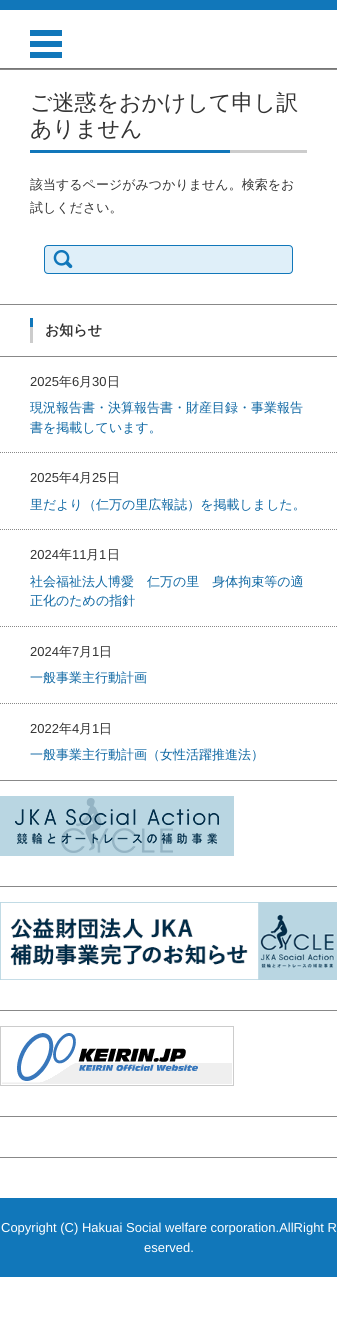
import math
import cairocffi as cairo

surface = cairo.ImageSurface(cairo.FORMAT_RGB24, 337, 1341)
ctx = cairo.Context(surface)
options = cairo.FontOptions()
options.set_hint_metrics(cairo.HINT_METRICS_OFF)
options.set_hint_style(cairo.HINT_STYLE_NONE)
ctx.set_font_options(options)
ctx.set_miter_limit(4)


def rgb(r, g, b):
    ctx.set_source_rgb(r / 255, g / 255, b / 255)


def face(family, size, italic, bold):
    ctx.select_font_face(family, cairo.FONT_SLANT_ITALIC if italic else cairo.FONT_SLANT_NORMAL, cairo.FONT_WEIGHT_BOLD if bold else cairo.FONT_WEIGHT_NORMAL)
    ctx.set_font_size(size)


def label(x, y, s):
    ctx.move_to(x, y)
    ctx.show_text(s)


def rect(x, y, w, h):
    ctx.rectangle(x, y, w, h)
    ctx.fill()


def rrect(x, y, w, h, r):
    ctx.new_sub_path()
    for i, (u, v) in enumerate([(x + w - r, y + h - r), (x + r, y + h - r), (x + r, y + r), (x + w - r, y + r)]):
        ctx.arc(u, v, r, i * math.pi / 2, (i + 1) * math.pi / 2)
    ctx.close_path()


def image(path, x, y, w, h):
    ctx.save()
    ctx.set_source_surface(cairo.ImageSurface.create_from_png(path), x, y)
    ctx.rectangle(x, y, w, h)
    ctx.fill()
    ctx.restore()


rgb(255, 255, 255)
ctx.paint()
rgb(17, 119, 186)
rect(0, 0, 337, 10)
image('image0.png', 30, 30, 32, 28)
rgb(119, 119, 119)
rect(0, 68, 337, 1)
rgb(136, 136, 136)
rect(0, 69, 337, 1)
image('image1.png', 30, 150, 277, 3)
face('WenQuanYi Zen Hei Medium', 22, 0, 0)
rgb(51, 51, 51)
label(30, 110, 'ご迷惑をおかけして申し訳')
label(30, 136, 'ありません')
face('WenQuanYi Zen Hei Medium', 13, 0, 0)
label(30, 189, '該当するページがみつかりません。検索をお')
label(30, 212, '試しください。')
rgb(223, 239, 249)
rrect(44, 245, 249, 29, 4)
ctx.fill()
image('image2.png', 53, 250, 20, 19)
rrect(44.5, 245.5, 248, 28, 3.5)
rgb(17, 119, 186)
ctx.set_line_width(1)
ctx.stroke()
rgb(136, 136, 136)
rect(0, 304, 337, 1)
image('image3.png', 30, 318, 3, 25)
rect(0, 356, 337, 1)
face('WenQuanYi Zen Hei', 14, 0, 1)
rgb(51, 51, 51)
label(45, 335, 'お知らせ')
ctx.new_path()
ctx.move_to(0, 452.5)
ctx.line_to(337, 452.5)
rgb(136, 136, 136)
ctx.set_dash([1, 1])
ctx.stroke()
face('Liberation Sans', 13, 0, 0)
rgb(51, 51, 51)
label(30, 386, '2025')
face('WenQuanYi Zen Hei Medium', 13, 0, 0)
label(59, 386, '年')
face('Liberation Sans', 13, 0, 0)
label(72, 386, '6')
face('WenQuanYi Zen Hei Medium', 13, 0, 0)
label(79, 386, '月')
face('Liberation Sans', 13, 0, 0)
label(92, 386, '30')
face('WenQuanYi Zen Hei Medium', 13, 0, 0)
label(107, 386, '日')
rgb(14, 103, 163)
label(30, 412, '現況報告書・決算報告書・財産目録・事業報告')
label(30, 432, '書を掲載しています。')
ctx.new_path()
ctx.move_to(0, 529.5)
ctx.line_to(337, 529.5)
rgb(136, 136, 136)
ctx.stroke()
face('Liberation Sans', 13, 0, 0)
rgb(51, 51, 51)
label(30, 482, '2025')
face('WenQuanYi Zen Hei Medium', 13, 0, 0)
label(59, 482, '年')
face('Liberation Sans', 13, 0, 0)
label(72, 482, '4')
face('WenQuanYi Zen Hei Medium', 13, 0, 0)
label(79, 482, '月')
face('Liberation Sans', 13, 0, 0)
label(92, 482, '25')
face('WenQuanYi Zen Hei Medium', 13, 0, 0)
label(107, 482, '日')
rgb(14, 103, 163)
label(30, 509, '里だより（仁万の里広報誌）を掲載しました。')
ctx.new_path()
ctx.move_to(0, 626.5)
ctx.line_to(337, 626.5)
rgb(136, 136, 136)
ctx.stroke()
face('Liberation Sans', 13, 0, 0)
rgb(51, 51, 51)
label(30, 559, '2024')
face('WenQuanYi Zen Hei Medium', 13, 0, 0)
label(59, 559, '年')
face('Liberation Sans', 13, 0, 0)
label(72, 559, '11')
face('WenQuanYi Zen Hei Medium', 13, 0, 0)
label(86, 559, '月')
face('Liberation Sans', 13, 0, 0)
label(99, 559, '1')
face('WenQuanYi Zen Hei Medium', 13, 0, 0)
label(107, 559, '日')
rgb(14, 103, 163)
label(30, 586, '社会福祉法人博愛　仁万の里　身体拘束等の適')
label(30, 605, '正化のための指針')
ctx.new_path()
ctx.move_to(0, 703.5)
ctx.line_to(337, 703.5)
rgb(136, 136, 136)
ctx.stroke()
face('Liberation Sans', 13, 0, 0)
rgb(51, 51, 51)
label(30, 656, '2024')
face('WenQuanYi Zen Hei Medium', 13, 0, 0)
label(59, 656, '年')
face('Liberation Sans', 13, 0, 0)
label(72, 656, '7')
face('WenQuanYi Zen Hei Medium', 13, 0, 0)
label(79, 656, '月')
face('Liberation Sans', 13, 0, 0)
label(92, 656, '1')
face('WenQuanYi Zen Hei Medium', 13, 0, 0)
label(99, 656, '日')
rgb(14, 103, 163)
label(30, 682, '一般事業主行動計画')
face('Liberation Sans', 13, 0, 0)
rgb(51, 51, 51)
label(30, 733, '2022')
face('WenQuanYi Zen Hei Medium', 13, 0, 0)
label(59, 733, '年')
face('Liberation Sans', 13, 0, 0)
label(72, 733, '4')
face('WenQuanYi Zen Hei Medium', 13, 0, 0)
label(79, 733, '月')
face('Liberation Sans', 13, 0, 0)
label(92, 733, '1')
face('WenQuanYi Zen Hei Medium', 13, 0, 0)
label(99, 733, '日')
rgb(14, 103, 163)
label(30, 759, '一般事業主行動計画（女性活躍推進法）')
rgb(136, 136, 136)
rect(0, 780, 337, 1)
image('image4.png', 0, 796, 234, 60)
rect(0, 886, 337, 1)
image('image5.png', 0, 902, 337, 78)
rect(0, 1010, 337, 1)
image('image6.png', 0, 1026, 234, 60)
rect(0, 1116, 337, 1)
rect(0, 1157, 337, 1)
rgb(17, 119, 186)
rect(0, 1198, 337, 79)
face('Liberation Sans', 13, 0, 0)
rgb(255, 255, 255)
label(1, 1232, 'Copyright (C) Hakuai Social welfare corporation.AllRight R')
label(144, 1252, 'eserved.')
surface.write_to_png('render.png')
